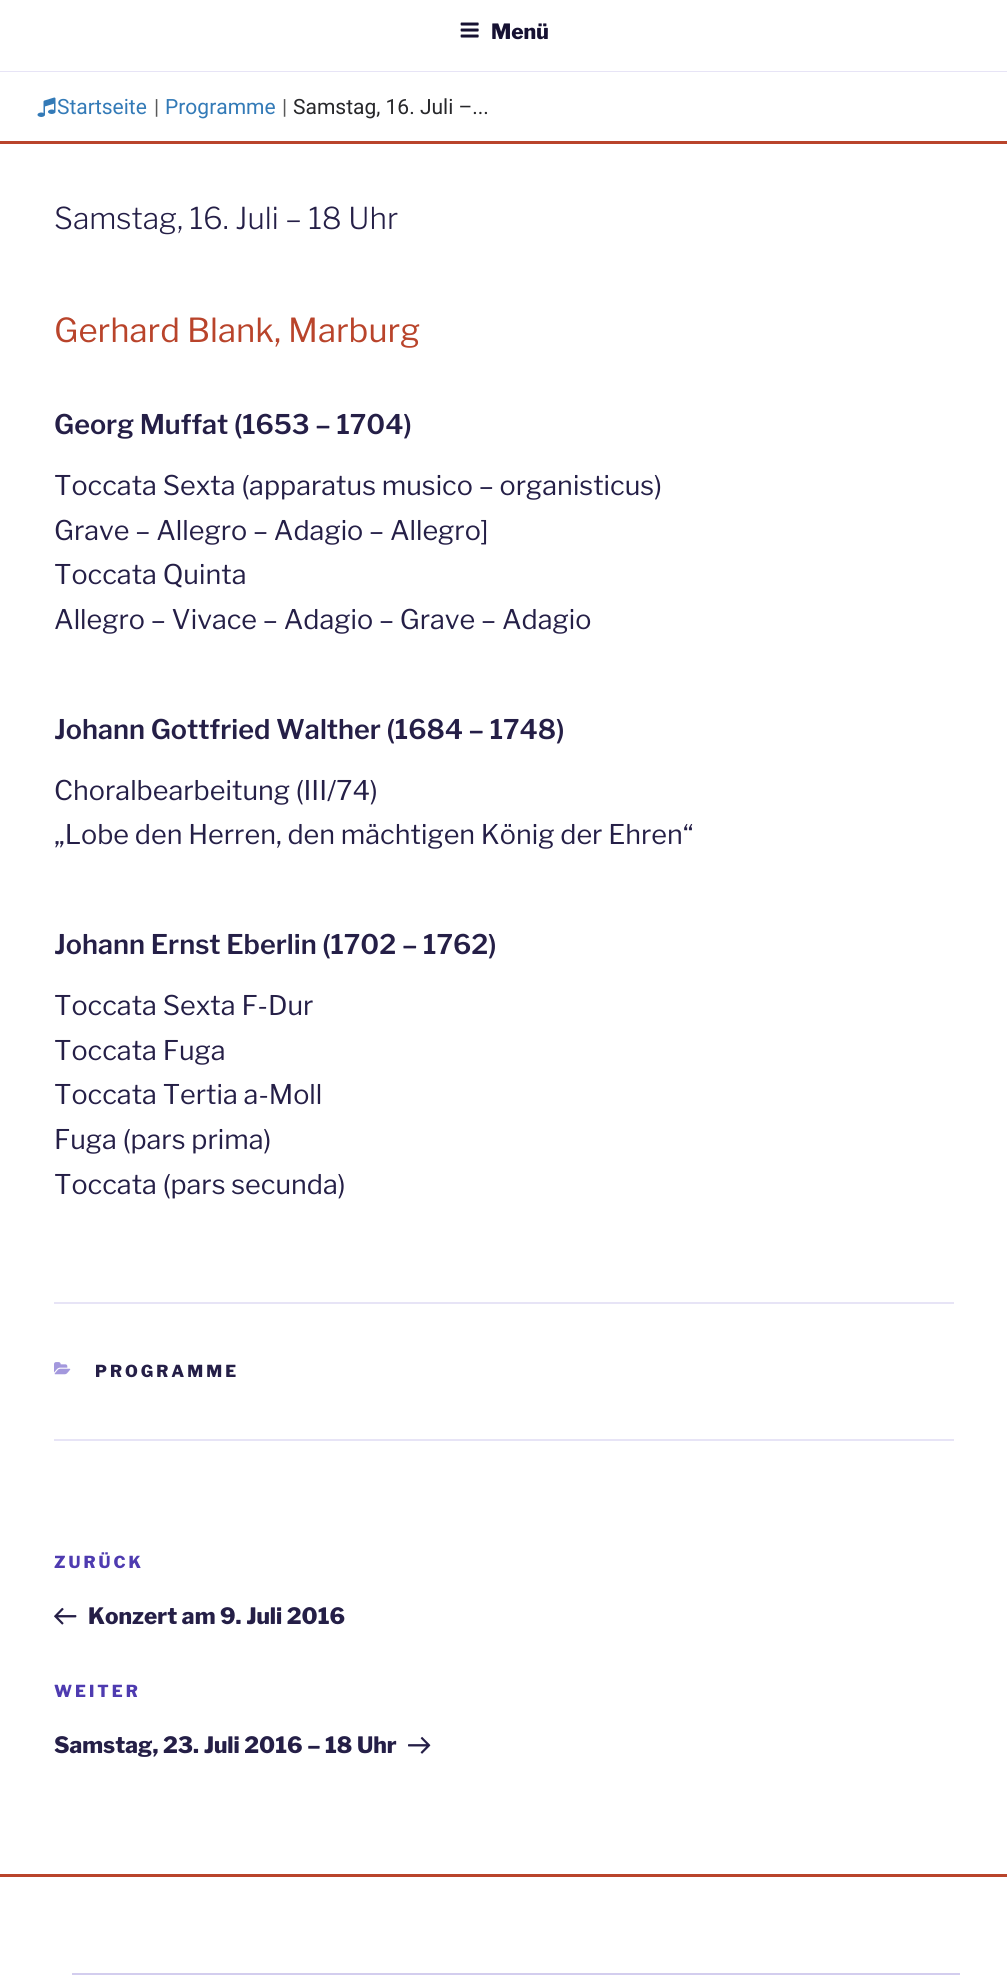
import math
import cairocffi as cairo

surface = cairo.ImageSurface(cairo.FORMAT_RGB24, 1007, 1975)
ctx = cairo.Context(surface)
options = cairo.FontOptions()
options.set_hint_metrics(cairo.HINT_METRICS_OFF)
options.set_hint_style(cairo.HINT_STYLE_NONE)
ctx.set_font_options(options)
ctx.set_miter_limit(4)


def rgb(r, g, b):
    ctx.set_source_rgb(r / 255, g / 255, b / 255)


def face(family, size, italic, bold):
    ctx.select_font_face(family, cairo.FONT_SLANT_ITALIC if italic else cairo.FONT_SLANT_NORMAL, cairo.FONT_WEIGHT_BOLD if bold else cairo.FONT_WEIGHT_NORMAL)
    ctx.set_font_size(size)


def label(x, y, s):
    ctx.move_to(x, y)
    ctx.show_text(s)


def tracked(x, y, s, letter, word):
    ctx.move_to(x, y)
    for ch in s:
        ctx.show_text(ch)
        ctx.rel_move_to(letter + word * (ch == ' '), 0)


def rect(x, y, w, h):
    ctx.rectangle(x, y, w, h)
    ctx.fill()


def image(path, x, y, w, h):
    ctx.save()
    ctx.set_source_surface(cairo.ImageSurface.create_from_png(path), x, y)
    ctx.rectangle(x, y, w, h)
    ctx.fill()
    ctx.restore()


rgb(255, 255, 255)
ctx.paint()
rgb(231, 228, 246)
rect(0, 71, 1007, 1)
image('image0.png', 460, 22, 19, 16)
face('Libre Franklin Thin', 21, 0, 0)
rgb(22, 17, 50)
label(491, 39, 'Menü')
image('image1.png', 37, 97, 19, 20)
face('Roboto', 21, 0, 0)
rgb(51, 122, 183)
label(57, 114, 'Startseite')
rgb(89, 89, 89)
label(154, 114, '|')
rgb(51, 122, 183)
label(165, 114, 'Programme')
rgb(89, 89, 89)
label(282, 114, '|')
rgb(39, 39, 42)
label(293, 114, 'Samstag, 16. Juli –...')
rgb(185, 68, 43)
rect(0, 141, 1007, 3)
face('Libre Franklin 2 Thin', 30, 0, 0)
rgb(37, 31, 71)
label(54, 229, 'Samstag, 16. Juli – 18 Uhr')
face('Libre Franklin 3 Thin', 33, 0, 0)
rgb(185, 68, 43)
label(54, 342, 'Gerhard Blank, Marburg')
face('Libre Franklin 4 Thin', 27, 0, 0)
rgb(37, 31, 71)
label(54, 434, 'Georg Muffat (1653 – 1704)')
face('Libre Franklin 3 Thin', 27, 0, 0)
label(54, 495, 'Toccata Sexta (apparatus musico – organisticus)')
label(54, 540, 'Grave – Allegro – Adagio – Allegro]')
label(54, 584, 'Toccata Quinta')
label(54, 629, 'Allegro – Vivace – Adagio – Grave – Adagio')
face('Libre Franklin 4 Thin', 27, 0, 0)
label(54, 739, 'Johann Gottfried Walther (1684 – 1748)')
face('Libre Franklin 3 Thin', 27, 0, 0)
label(54, 800, 'Choralbearbeitung (III/74)')
label(54, 844, '„Lobe den Herren, den mächtigen König der Ehren“')
face('Libre Franklin 4 Thin', 27, 0, 0)
label(54, 954, 'Johann Ernst Eberlin (1702 – 1762)')
face('Libre Franklin 3 Thin', 27, 0, 0)
label(54, 1015, 'Toccata Sexta F-Dur')
label(54, 1060, 'Toccata Fuga')
label(54, 1104, 'Toccata Tertia a-Moll')
label(54, 1149, 'Fuga (pars prima)')
label(54, 1194, 'Toccata (pars secunda)')
rgb(231, 228, 246)
rect(54, 1302, 900, 2)
rect(54, 1439, 900, 2)
image('image2.png', 54, 1362, 17, 13)
face('Libre Franklin Thin', 16.5, 0, 0)
rgb(37, 31, 71)
tracked(95, 1377, 'PROGRAMME', 3, 0)
rgb(78, 59, 176)
tracked(54, 1568, 'ZURÜCK', 3, 0)
image('image3.png', 54, 1607, 23, 18)
face('Libre Franklin Thin', 22.5, 0, 0)
rgb(37, 31, 71)
label(88, 1624, 'Konzert am 9. Juli 2016')
face('Libre Franklin Thin', 16.5, 0, 0)
rgb(78, 59, 176)
tracked(54, 1697, 'WEITER', 3, 0)
face('Libre Franklin Thin', 22.5, 0, 0)
rgb(37, 31, 71)
label(54, 1753, 'Samstag, 23. Juli 2016 – 18 Uhr')
image('image4.png', 408, 1736, 23, 18)
rgb(185, 68, 43)
rect(0, 1874, 1007, 3)
rgb(211, 205, 238)
rect(72, 1973, 888, 2)
surface.write_to_png('render.png')
